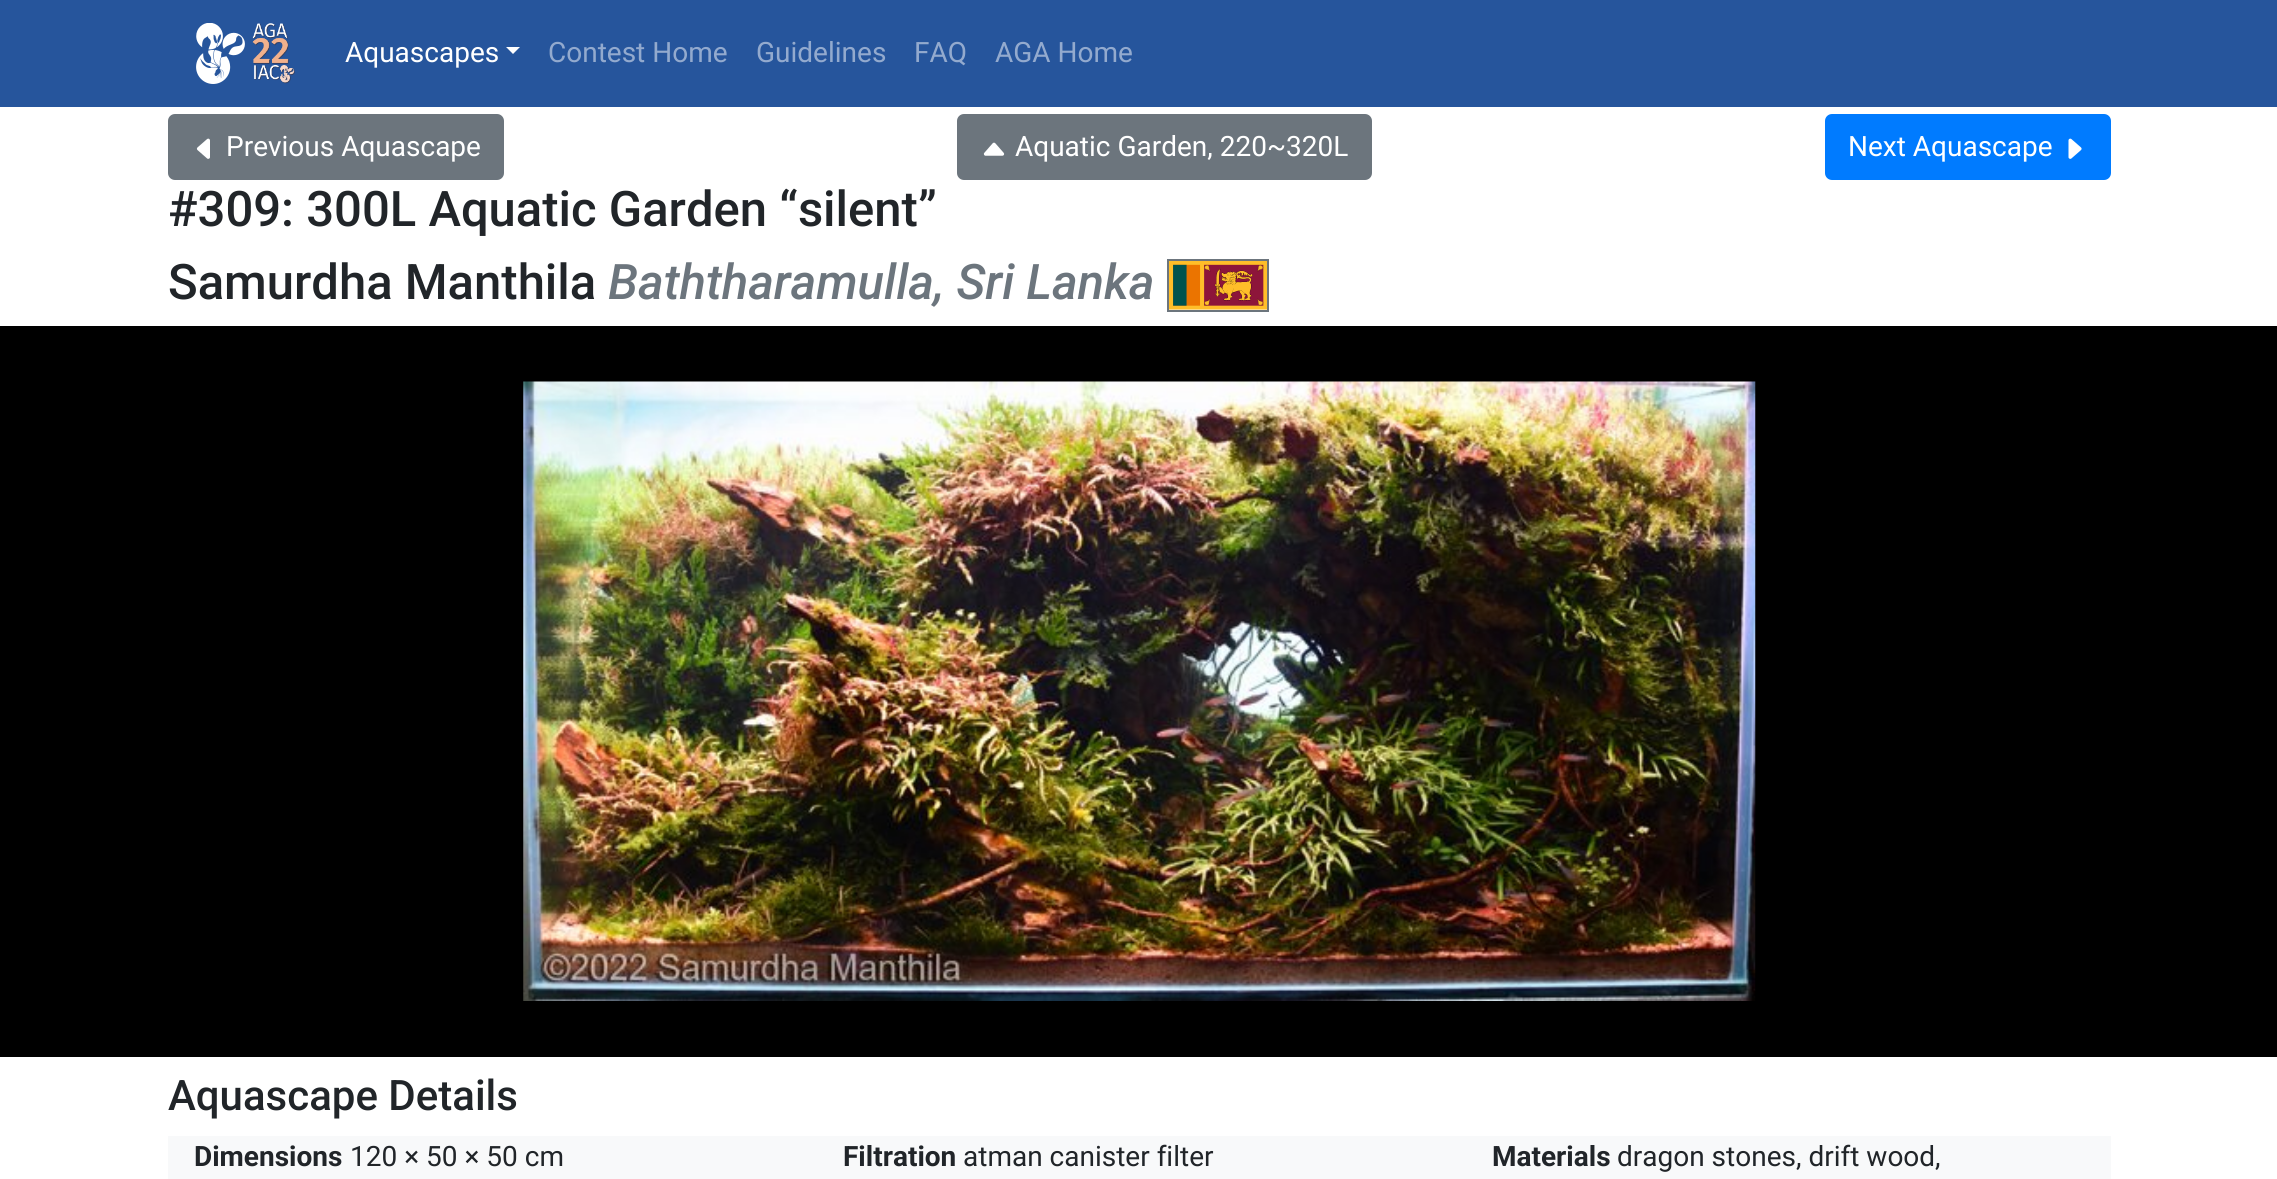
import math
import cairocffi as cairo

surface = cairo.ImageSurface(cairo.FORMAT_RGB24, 2277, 1179)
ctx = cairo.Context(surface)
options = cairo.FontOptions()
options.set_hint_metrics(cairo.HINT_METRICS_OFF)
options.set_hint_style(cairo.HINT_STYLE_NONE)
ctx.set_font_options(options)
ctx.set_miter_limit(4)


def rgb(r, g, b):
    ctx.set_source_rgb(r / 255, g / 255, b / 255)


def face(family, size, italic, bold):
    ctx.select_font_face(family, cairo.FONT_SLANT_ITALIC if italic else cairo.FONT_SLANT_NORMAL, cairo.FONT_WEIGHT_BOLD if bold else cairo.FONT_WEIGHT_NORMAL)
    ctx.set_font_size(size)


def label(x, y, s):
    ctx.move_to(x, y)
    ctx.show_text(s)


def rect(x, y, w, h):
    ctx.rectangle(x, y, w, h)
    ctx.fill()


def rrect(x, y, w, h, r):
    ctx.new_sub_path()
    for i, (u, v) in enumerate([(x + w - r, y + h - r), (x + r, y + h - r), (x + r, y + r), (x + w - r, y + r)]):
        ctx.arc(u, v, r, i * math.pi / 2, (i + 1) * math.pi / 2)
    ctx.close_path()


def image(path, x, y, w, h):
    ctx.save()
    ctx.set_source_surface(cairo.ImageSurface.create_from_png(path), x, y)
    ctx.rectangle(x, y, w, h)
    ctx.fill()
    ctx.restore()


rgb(255, 255, 255)
ctx.paint()
rgb(38, 85, 156)
rect(0, 0, 2277, 107)
image('image0.png', 196, 23, 49, 61)
image('image1.png', 252, 23, 43, 61)
face('Roboto', 28, 0, 0)
rgb(255, 255, 255)
label(345, 62, 'Aquascapes')
ctx.new_path()
ctx.move_to(506, 47)
ctx.line_to(520, 47)
ctx.line_to(513, 54)
ctx.close_path()
ctx.fill()
rgb(147, 170, 206)
label(548, 62, 'Contest Home')
label(756, 62, 'Guidelines')
label(914, 62, 'FAQ')
label(995, 62, 'AGA Home')
rgb(108, 117, 125)
rrect(169, 115, 334, 64, 6)
ctx.fill_preserve()
ctx.stroke()
image('image2.png', 196, 138, 14, 21)
rgb(255, 255, 255)
label(226, 156, 'Previous Aquascape')
rgb(108, 117, 125)
rrect(958, 115, 413, 64, 6)
ctx.fill_preserve()
ctx.stroke()
image('image3.png', 983, 142, 22, 14)
rgb(255, 255, 255)
label(1015, 156, 'Aquatic Garden, 220~320L')
rgb(0, 123, 255)
rrect(1826, 115, 284, 64, 6)
ctx.fill_preserve()
ctx.stroke()
rgb(255, 255, 255)
label(1848, 156, 'Next Aquascape')
image('image4.png', 2068, 138, 14, 21)
face('Roboto Medium', 49, 0, 0)
rgb(33, 37, 41)
label(168, 226, '#309: 300L Aquatic Garden “silent”')
ctx.rectangle(1168, 260, 100, 51)
rgb(108, 117, 125)
ctx.stroke()
rgb(33, 37, 41)
label(168, 299, 'Samurdha Manthila')
face('Roboto Medium', 49, 1, 0)
rgb(108, 117, 125)
label(608, 299, 'Baththaramulla, Sri Lanka')
image('image5.png', 1169, 261, 98, 49)
rgb(0, 0, 0)
rect(0, 326, 2277, 731)
image('image6.png', 523, 381, 1233, 620)
face('Roboto Medium', 42, 0, 0)
rgb(33, 37, 41)
label(168, 1110, 'Aquascape Details')
rgb(248, 249, 250)
rect(168, 1136, 1943, 43)
face('Roboto', 28, 0, 1)
rgb(33, 37, 41)
label(194, 1166, 'Dimensions')
face('Roboto', 28, 0, 0)
label(350, 1166, '120 × 50 × 50 cm')
face('Roboto', 28, 0, 1)
label(843, 1166, 'Filtration')
face('Roboto', 28, 0, 0)
label(963, 1166, 'atman canister filter')
face('Roboto', 28, 0, 1)
label(1492, 1166, 'Materials')
face('Roboto', 28, 0, 0)
label(1617, 1166, 'dragon stones, drift wood,')
surface.write_to_png('render.png')
